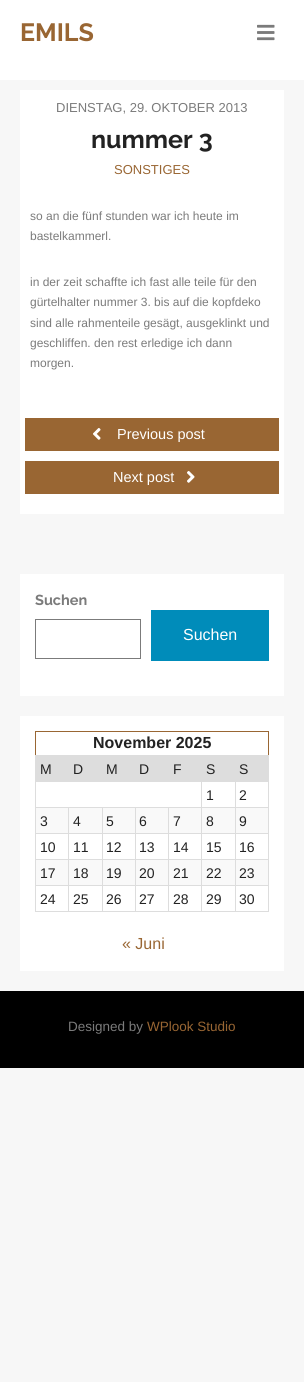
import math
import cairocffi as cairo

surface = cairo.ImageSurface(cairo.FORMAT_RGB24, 304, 1382)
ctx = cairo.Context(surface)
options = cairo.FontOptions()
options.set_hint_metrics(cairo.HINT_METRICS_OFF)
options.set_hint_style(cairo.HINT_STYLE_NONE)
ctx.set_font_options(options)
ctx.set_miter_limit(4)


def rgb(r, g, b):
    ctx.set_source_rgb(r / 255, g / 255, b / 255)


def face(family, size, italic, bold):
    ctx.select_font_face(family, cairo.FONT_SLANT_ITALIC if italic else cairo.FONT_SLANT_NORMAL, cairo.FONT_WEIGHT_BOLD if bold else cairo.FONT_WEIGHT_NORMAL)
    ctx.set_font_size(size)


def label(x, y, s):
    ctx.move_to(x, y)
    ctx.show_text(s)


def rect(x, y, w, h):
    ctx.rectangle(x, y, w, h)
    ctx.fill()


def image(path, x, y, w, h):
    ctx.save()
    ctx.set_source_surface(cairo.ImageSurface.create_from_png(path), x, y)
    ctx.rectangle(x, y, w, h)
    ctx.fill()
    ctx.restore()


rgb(247, 247, 247)
ctx.paint()
rgb(255, 255, 255)
rect(0, 0, 304, 80)
face('Raleway', 25, 0, 1)
rgb(153, 102, 51)
label(20, 41, 'EMILS')
image('image0.png', 257, 24, 18, 17)
rgb(255, 255, 255)
rect(20, 90, 264, 424)
face('Liberation Sans', 13, 0, 0)
rgb(123, 123, 123)
label(56, 112, 'DIENSTAG, 29. OKTOBER 2013')
face('Raleway', 25, 0, 1)
rgb(34, 34, 34)
label(91, 148, 'nummer 3')
face('Liberation Sans', 13, 0, 0)
rgb(153, 102, 51)
label(114, 174, 'SONSTIGES')
face('Liberation Sans', 12, 0, 0)
rgb(123, 123, 123)
label(30, 220, 'so an die fünf stunden war ich heute im')
label(30, 240, 'bastelkammerl.')
label(30, 286, 'in der zeit schaffte ich fast alle teile für den')
label(30, 306, 'gürtelhalter nummer 3. bis auf die kopfdeko')
label(30, 327, 'sind alle rahmenteile gesägt, ausgeklinkt und')
label(30, 347, 'geschliffen. den rest erledige ich dann')
label(30, 367, 'morgen.')
rgb(153, 102, 51)
rect(25, 418, 254, 33)
image('image1.png', 93, 428, 8, 12)
face('Liberation Sans', 14.5, 0, 0)
rgb(255, 255, 255)
label(117, 439, 'Previous post')
rgb(153, 102, 51)
rect(25, 461, 254, 33)
rgb(255, 255, 255)
label(113, 482, 'Next post')
image('image2.png', 187, 471, 8, 12)
rect(20, 574, 264, 122)
face('Raleway', 14.5, 0, 1)
rgb(123, 123, 123)
label(35, 605, 'Suchen')
ctx.rectangle(35.5, 619.5, 105, 39)
ctx.set_line_width(1)
ctx.stroke()
rgb(0, 140, 186)
rect(151, 610, 118, 51)
face('Liberation Sans', 16, 0, 0)
rgb(255, 255, 255)
label(183, 640, 'Suchen')
rect(20, 716, 264, 255)
rgb(153, 102, 51)
rect(35, 731, 234, 1)
rect(268, 731, 1, 24)
rect(35, 731, 1, 24)
face('Liberation Sans', 16, 0, 1)
rgb(34, 34, 34)
label(93, 748, 'November 2025')
rgb(221, 221, 221)
rect(36, 756, 166, 25)
rect(35, 755, 234, 1)
rect(235, 807, 34, 1)
rgb(249, 249, 249)
rect(36, 808, 232, 25)
rgb(221, 221, 221)
rect(235, 833, 34, 1)
rect(235, 859, 34, 1)
rgb(249, 249, 249)
rect(36, 860, 232, 25)
rgb(221, 221, 221)
rect(235, 885, 34, 1)
rect(268, 885, 1, 27)
rect(235, 911, 34, 1)
rect(235, 885, 1, 27)
rect(201, 885, 35, 1)
rect(235, 859, 1, 27)
rect(201, 859, 35, 1)
rect(235, 833, 1, 27)
rect(201, 833, 35, 1)
rect(235, 807, 1, 27)
rect(201, 807, 35, 1)
rect(201, 911, 35, 1)
rect(201, 885, 1, 27)
rect(168, 885, 34, 1)
rect(201, 859, 1, 27)
rect(168, 859, 34, 1)
rect(201, 833, 1, 27)
rect(168, 833, 34, 1)
rect(201, 807, 1, 27)
rect(168, 807, 34, 1)
rect(201, 781, 1, 27)
rect(35, 781, 167, 1)
rect(168, 911, 34, 1)
rect(168, 885, 1, 27)
rect(135, 885, 34, 1)
rect(168, 859, 1, 27)
rect(135, 859, 34, 1)
rect(168, 833, 1, 27)
rect(135, 833, 34, 1)
rect(168, 807, 1, 27)
rect(135, 807, 34, 1)
rect(135, 911, 34, 1)
rect(135, 885, 1, 27)
rect(102, 885, 34, 1)
rect(135, 859, 1, 27)
rect(102, 859, 34, 1)
rect(135, 833, 1, 27)
rect(102, 833, 34, 1)
rect(135, 807, 1, 27)
rect(102, 807, 34, 1)
rect(102, 911, 34, 1)
rect(102, 885, 1, 27)
rect(68, 885, 35, 1)
rect(102, 859, 1, 27)
rect(68, 859, 35, 1)
rect(102, 833, 1, 27)
rect(68, 833, 35, 1)
rect(102, 807, 1, 27)
rect(68, 807, 35, 1)
rect(68, 911, 35, 1)
rect(68, 885, 1, 27)
rect(35, 885, 34, 1)
rect(68, 859, 1, 27)
rect(35, 859, 34, 1)
rect(68, 833, 1, 27)
rect(35, 833, 34, 1)
rect(68, 807, 1, 27)
rect(35, 807, 34, 1)
rect(35, 911, 34, 1)
rect(35, 885, 1, 27)
rect(35, 859, 1, 27)
rect(35, 833, 1, 27)
rect(35, 807, 1, 27)
rect(35, 781, 1, 27)
rect(35, 755, 1, 27)
face('Liberation Sans', 14, 0, 0)
rgb(34, 34, 34)
label(40, 774, 'M')
label(73, 774, 'D')
label(106, 774, 'M')
label(139, 774, 'D')
label(173, 774, 'F')
rgb(221, 221, 221)
rect(202, 756, 33, 26)
rgb(34, 34, 34)
label(206, 774, 'S')
rgb(221, 221, 221)
rect(235, 756, 33, 25)
rect(235, 781, 34, 1)
rect(268, 859, 1, 27)
rect(268, 833, 1, 27)
rect(268, 807, 1, 27)
rect(268, 781, 1, 27)
rect(268, 755, 1, 27)
rgb(34, 34, 34)
label(239, 774, 'S')
label(206, 800, '1')
rgb(221, 221, 221)
rect(235, 781, 1, 27)
rgb(34, 34, 34)
label(239, 800, '2')
label(40, 826, '3')
label(73, 826, '4')
label(106, 826, '5')
label(139, 826, '6')
label(173, 826, '7')
label(206, 826, '8')
label(239, 826, '9')
label(40, 852, '10')
label(73, 852, '11')
label(106, 852, '12')
label(139, 852, '13')
label(173, 852, '14')
label(206, 852, '15')
label(239, 852, '16')
label(40, 878, '17')
label(73, 878, '18')
label(106, 878, '19')
label(139, 878, '20')
label(173, 878, '21')
label(206, 878, '22')
label(239, 878, '23')
label(40, 904, '24')
label(73, 904, '25')
label(106, 904, '26')
label(139, 904, '27')
label(173, 904, '28')
label(206, 904, '29')
label(239, 904, '30')
face('Liberation Sans', 16, 0, 0)
rgb(153, 102, 51)
label(122, 949, '« Juni')
rgb(0, 0, 0)
rect(0, 991, 304, 77)
face('Liberation Sans', 13.5, 0, 0)
rgb(123, 123, 123)
label(68, 1031, 'Designed by')
rgb(153, 102, 51)
label(147, 1031, 'WPlook Studio')
surface.write_to_png('render.png')
